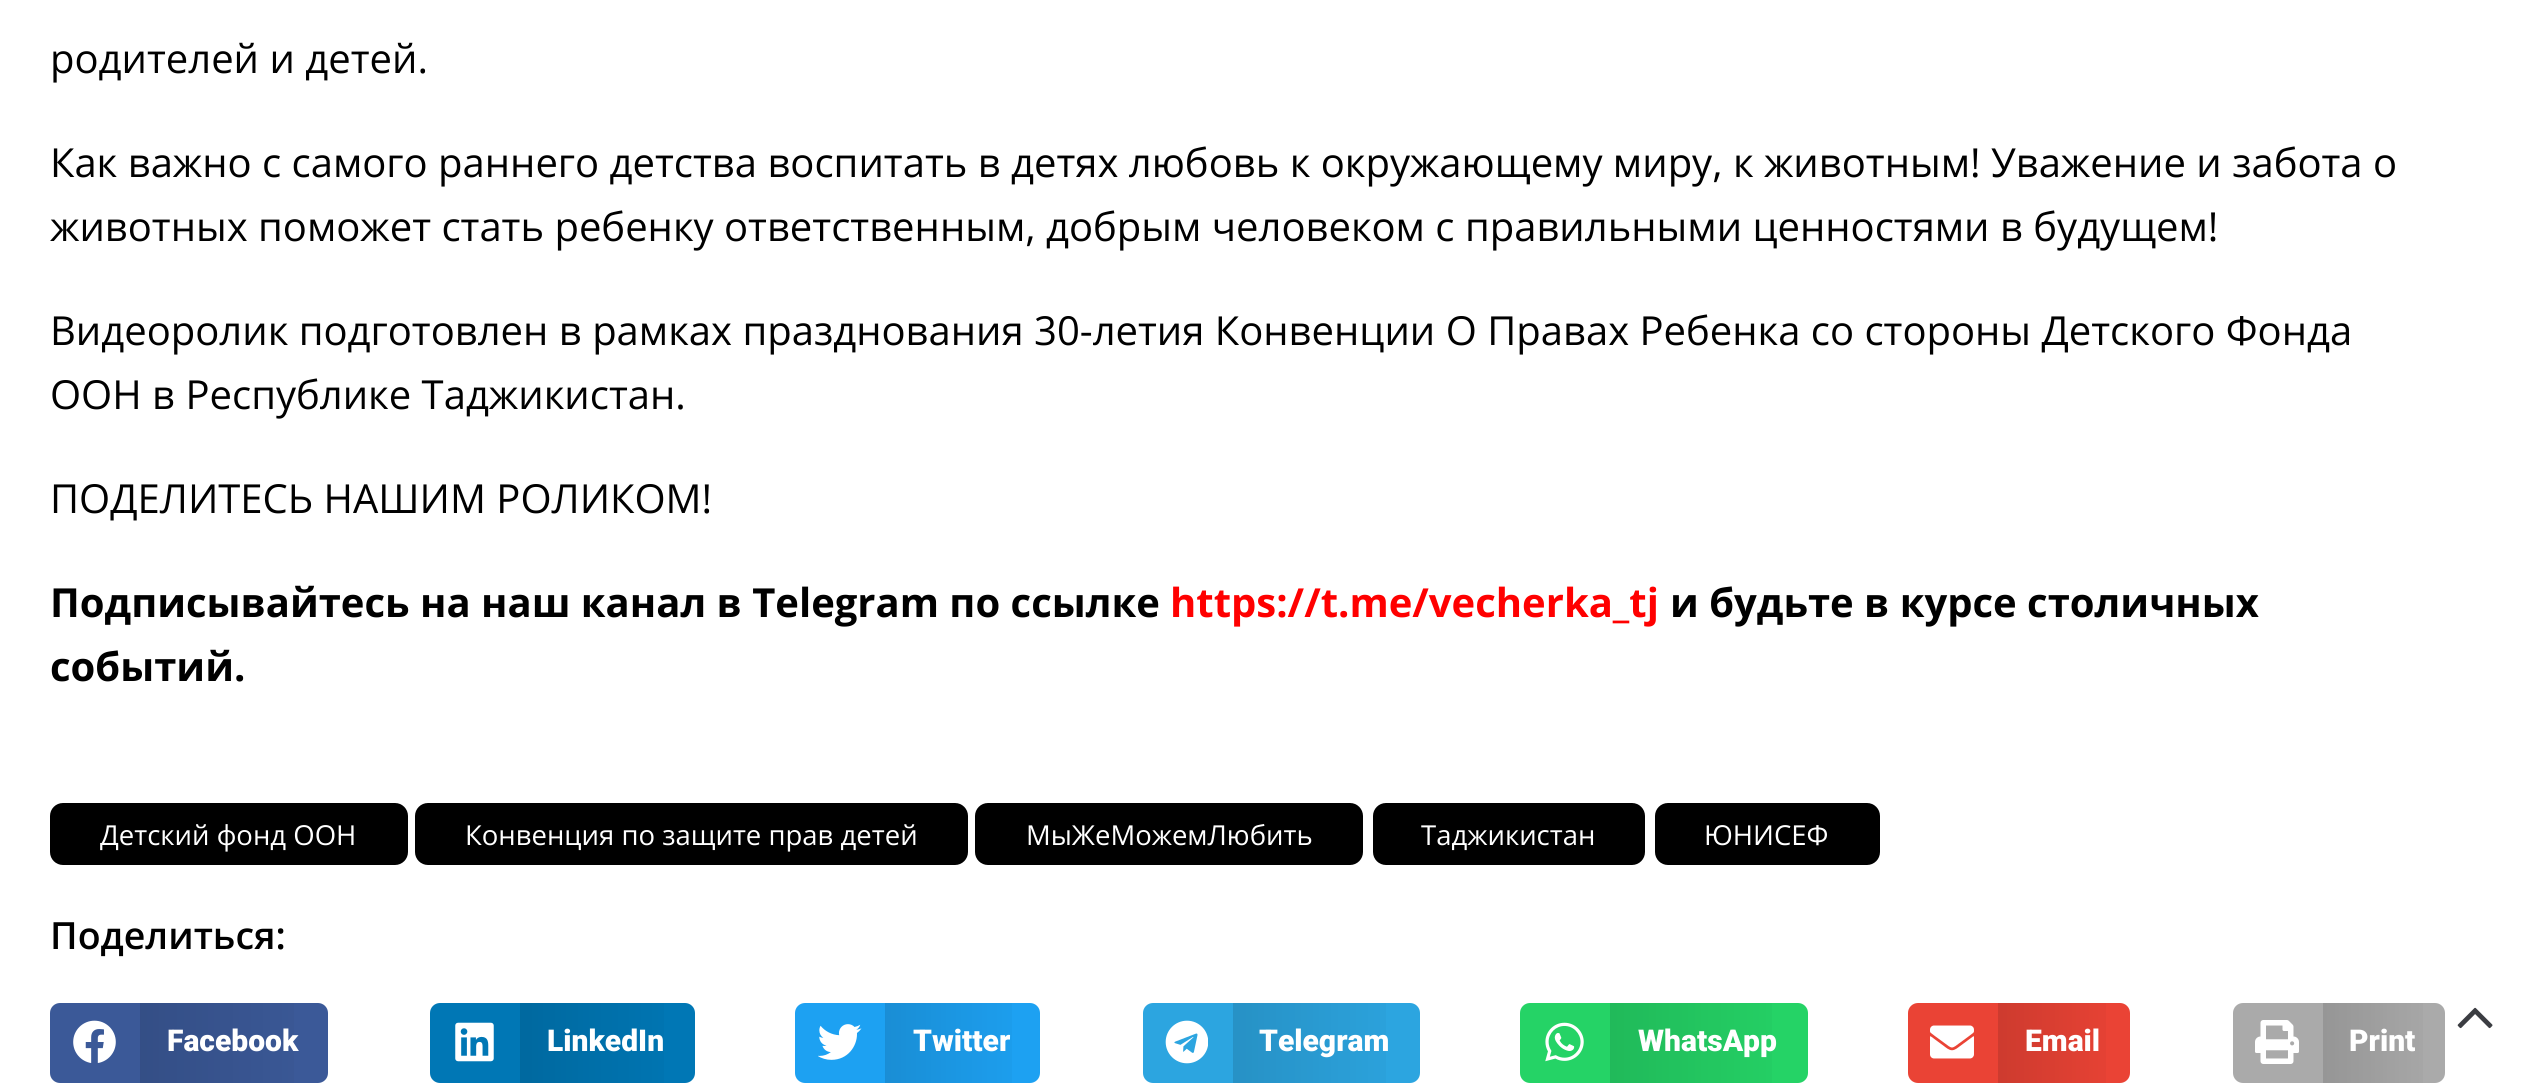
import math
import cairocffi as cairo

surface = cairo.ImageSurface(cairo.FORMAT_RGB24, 2545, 1089)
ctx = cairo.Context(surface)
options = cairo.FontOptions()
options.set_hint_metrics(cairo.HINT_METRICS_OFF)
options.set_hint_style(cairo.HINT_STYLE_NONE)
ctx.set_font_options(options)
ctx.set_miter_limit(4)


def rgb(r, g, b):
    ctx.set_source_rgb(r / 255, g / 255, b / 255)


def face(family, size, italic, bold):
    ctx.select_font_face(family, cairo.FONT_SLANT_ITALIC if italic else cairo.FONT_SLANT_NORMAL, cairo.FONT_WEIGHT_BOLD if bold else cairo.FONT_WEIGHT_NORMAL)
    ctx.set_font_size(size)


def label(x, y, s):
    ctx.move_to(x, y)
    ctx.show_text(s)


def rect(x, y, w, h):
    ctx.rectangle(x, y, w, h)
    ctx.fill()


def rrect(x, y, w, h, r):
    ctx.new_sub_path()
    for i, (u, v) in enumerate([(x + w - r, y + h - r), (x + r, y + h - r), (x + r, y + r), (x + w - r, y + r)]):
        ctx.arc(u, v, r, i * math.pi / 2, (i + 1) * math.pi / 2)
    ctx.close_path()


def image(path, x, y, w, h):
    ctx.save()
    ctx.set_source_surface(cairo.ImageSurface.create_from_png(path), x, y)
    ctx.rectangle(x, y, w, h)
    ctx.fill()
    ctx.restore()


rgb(255, 255, 255)
ctx.paint()
face('Open Sans', 40, 0, 0)
rgb(0, 0, 0)
label(50, 73, 'родителей и детей.')
label(50, 177, 'Как важно с самого раннего детства воспитать в детях любовь к окружающему миру, к животным! Уважение и забота о')
label(50, 241, 'животных поможет стать ребенку ответственным, добрым человеком с правильными ценностями в будущем!')
label(50, 345, 'Видеоролик подготовлен в рамках празднования 30-летия Конвенции О Правах Ребенка со стороны Детского Фонда')
label(50, 409, 'ООН в Республике Таджикистан.')
label(50, 513, 'ПОДЕЛИТЕСЬ НАШИМ РОЛИКОМ!')
face('Open Sans', 40, 0, 1)
label(50, 617, 'Подписывайтесь на наш канал в Telegram по ссылке')
rgb(255, 0, 0)
label(1170, 617, 'https://t.me/vecherka_tj')
rgb(0, 0, 0)
label(1670, 617, 'и будьте в курсе столичных')
label(50, 681, 'событий.')
rrect(50, 803, 358, 62, 13)
ctx.fill()
face('Open Sans', 27.5, 0, 0)
rgb(255, 255, 255)
label(100, 845, 'Детский фонд ООН')
rgb(0, 0, 0)
rrect(415, 803, 553, 62, 13)
ctx.fill()
rgb(255, 255, 255)
label(465, 845, 'Конвенция по защите прав детей')
rgb(0, 0, 0)
rrect(975, 803, 388, 62, 13)
ctx.fill()
rgb(255, 255, 255)
label(1026, 845, 'МыЖеМожемЛюбить')
rgb(0, 0, 0)
rrect(1373, 803, 272, 62, 13)
ctx.fill()
rgb(255, 255, 255)
label(1421, 845, 'Таджикистан')
rgb(0, 0, 0)
rrect(1655, 803, 225, 62, 13)
ctx.fill()
rgb(255, 255, 255)
label(1704, 845, 'ЮНИСЕФ')
face('Open Sans SemiBold', 37.5, 0, 0)
rgb(0, 0, 0)
label(50, 949, 'Поделиться:')
rgb(59, 89, 152)
rrect(50, 1003, 278, 80, 10)
ctx.fill()
image('image0.png', 73, 1020, 43, 43)
gradient = cairo.LinearGradient(140, 1043, 328, 1043)
gradient.add_color_stop_rgba(0, 0, 0, 0, 0.12)
gradient.add_color_stop_rgba(1, 0, 0, 0, 0)
ctx.set_source(gradient)
rect(140, 1003, 154, 80)
face('Roboto Black', 30, 0, 0)
rgb(255, 255, 255)
label(167, 1051, 'Facebook')
rgb(0, 119, 181)
rrect(430, 1003, 265, 80, 10)
ctx.fill()
image('image1.png', 455, 1022, 39, 40)
gradient = cairo.LinearGradient(520, 1043, 695, 1043)
gradient.add_color_stop_rgba(0, 0, 0, 0, 0.12)
gradient.add_color_stop_rgba(1, 0, 0, 0, 0)
ctx.set_source(gradient)
rect(520, 1003, 144, 80)
rgb(255, 255, 255)
label(547, 1051, 'LinkedIn')
rgb(29, 161, 242)
rrect(795, 1003, 245, 80, 10)
ctx.fill()
image('image2.png', 818, 1024, 44, 36)
gradient = cairo.LinearGradient(885, 1043, 1040, 1043)
gradient.add_color_stop_rgba(0, 0, 0, 0, 0.12)
gradient.add_color_stop_rgba(1, 0, 0, 0, 0)
ctx.set_source(gradient)
rect(885, 1003, 127, 80)
rgb(255, 255, 255)
label(913, 1051, 'Twitter')
rgb(44, 165, 224)
rrect(1143, 1003, 277, 80, 10)
ctx.fill()
image('image3.png', 1165, 1020, 43, 44)
gradient = cairo.LinearGradient(1233, 1043, 1420, 1043)
gradient.add_color_stop_rgba(0, 0, 0, 0, 0.12)
gradient.add_color_stop_rgba(1, 0, 0, 0, 0)
ctx.set_source(gradient)
rect(1233, 1003, 153, 80)
rgb(255, 255, 255)
label(1259, 1051, 'Telegram')
rgb(37, 211, 102)
rrect(1520, 1003, 288, 80, 10)
ctx.fill()
image('image4.png', 1545, 1022, 39, 40)
gradient = cairo.LinearGradient(1610, 1043, 1808, 1043)
gradient.add_color_stop_rgba(0, 0, 0, 0, 0.12)
gradient.add_color_stop_rgba(1, 0, 0, 0, 0)
ctx.set_source(gradient)
rect(1610, 1003, 162, 80)
rgb(255, 255, 255)
label(1638, 1051, 'WhatsApp')
rgb(234, 67, 53)
rrect(1908, 1003, 222, 80, 10)
ctx.fill()
image('image5.png', 1930, 1025, 44, 34)
gradient = cairo.LinearGradient(1998, 1043, 2130, 1043)
gradient.add_color_stop_rgba(0, 0, 0, 0, 0.12)
gradient.add_color_stop_rgba(1, 0, 0, 0, 0)
ctx.set_source(gradient)
rect(1998, 1003, 108, 80)
rgb(255, 255, 255)
label(2025, 1051, 'Email')
rgb(170, 170, 170)
rrect(2233, 1003, 212, 80, 10)
ctx.fill()
image('image6.png', 2255, 1020, 44, 44)
gradient = cairo.LinearGradient(2323, 1043, 2445, 1043)
gradient.add_color_stop_rgba(0, 0, 0, 0, 0.12)
gradient.add_color_stop_rgba(1, 0, 0, 0, 0)
ctx.set_source(gradient)
rect(2323, 1003, 100, 80)
rgb(255, 255, 255)
label(2349, 1051, 'Print')
image('image7.png', 2457, 1007, 36, 22)
surface.write_to_png('render.png')
